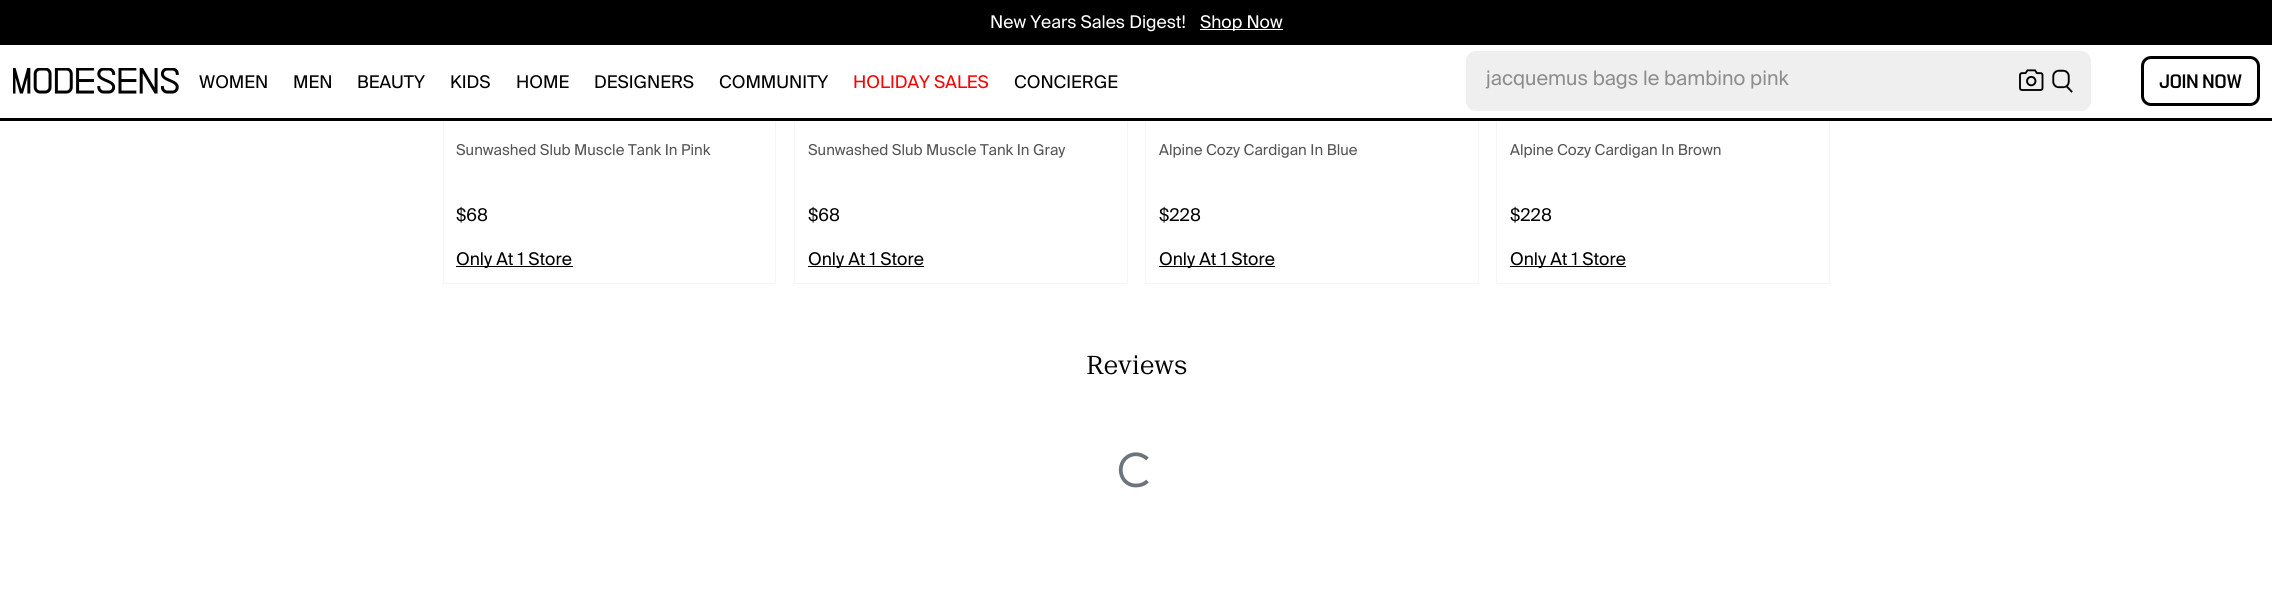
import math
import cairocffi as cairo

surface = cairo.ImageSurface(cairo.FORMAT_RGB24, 2272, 602)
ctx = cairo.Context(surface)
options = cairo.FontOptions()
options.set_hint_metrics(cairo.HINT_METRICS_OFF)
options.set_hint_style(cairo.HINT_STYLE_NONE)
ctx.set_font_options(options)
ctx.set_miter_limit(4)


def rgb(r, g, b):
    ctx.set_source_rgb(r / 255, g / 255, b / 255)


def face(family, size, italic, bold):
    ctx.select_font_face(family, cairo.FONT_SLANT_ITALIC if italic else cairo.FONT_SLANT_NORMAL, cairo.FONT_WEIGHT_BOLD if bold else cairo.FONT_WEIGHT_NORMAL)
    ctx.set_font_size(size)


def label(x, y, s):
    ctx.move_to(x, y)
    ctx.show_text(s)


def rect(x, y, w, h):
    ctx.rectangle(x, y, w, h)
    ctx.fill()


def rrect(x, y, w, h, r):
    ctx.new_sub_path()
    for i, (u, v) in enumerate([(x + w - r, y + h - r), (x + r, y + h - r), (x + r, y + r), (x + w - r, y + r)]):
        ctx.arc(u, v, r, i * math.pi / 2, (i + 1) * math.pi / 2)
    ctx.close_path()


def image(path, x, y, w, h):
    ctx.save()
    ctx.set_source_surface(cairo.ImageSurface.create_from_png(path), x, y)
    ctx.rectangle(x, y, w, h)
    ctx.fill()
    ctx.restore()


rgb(255, 255, 255)
ctx.paint()
ctx.rectangle(443.5, -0.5, 332, 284)
rgb(245, 245, 245)
ctx.set_line_width(1)
ctx.stroke()
ctx.rectangle(794.5, -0.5, 333, 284)
ctx.stroke()
ctx.rectangle(1145.5, -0.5, 333, 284)
ctx.stroke()
ctx.rectangle(1496.5, -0.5, 333, 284)
ctx.stroke()
rgb(255, 255, 255)
rect(443, 45, 1387, 73)
rgb(0, 0, 0)
rect(0, 0, 2272, 45)
face('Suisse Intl', 17.5, 0, 0)
rgb(255, 255, 255)
label(990, 28, 'New Years Sales Digest!')
rect(1200, 29, 83, 1)
label(1200, 28, 'Shop Now')
rgb(0, 0, 0)
rect(0, 118, 2272, 3)
image('image0.png', 13, 68, 166, 26)
label(199, 88, 'WOMEN')
label(293, 88, 'MEN')
label(357, 88, 'BEAUTY')
label(450, 88, 'KIDS')
label(516, 88, 'HOME')
label(594, 88, 'DESIGNERS')
label(719, 88, 'COMMUNITY')
rgb(255, 0, 0)
label(853, 88, 'HOLIDAY SALES')
rgb(0, 0, 0)
label(1014, 88, 'CONCIERGE')
rgb(239, 239, 239)
rrect(1466.5, 51.5, 624, 59, 9.5)
ctx.fill_preserve()
ctx.stroke()
face('Suisse Intl', 20, 0, 0)
rgb(142, 142, 142)
label(1486, 85, 'jacquemus bags le bambino pink')
image('image1.png', 2019, 69, 25, 22)
image('image2.png', 2052, 69, 21, 24)
rrect(2142.5, 57.5, 116, 47, 8.5)
rgb(0, 0, 0)
ctx.set_line_width(3)
ctx.stroke()
face('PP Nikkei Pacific', 20, 0, 0)
label(2159, 88, 'JOIN NOW')
face('Suisse Intl', 15, 0, 0)
rgb(85, 85, 85)
label(456, 155, 'Sunwashed Slub Muscle Tank In Pink')
face('Suisse Intl', 17.5, 0, 0)
rgb(0, 0, 0)
label(456, 221, '$68')
rect(456, 266, 117, 1)
label(456, 265, 'Only At 1 Store')
face('Suisse Intl', 15, 0, 0)
rgb(85, 85, 85)
label(808, 155, 'Sunwashed Slub Muscle Tank In Gray')
face('Suisse Intl', 17.5, 0, 0)
rgb(0, 0, 0)
label(808, 221, '$68')
rect(808, 266, 116, 1)
label(808, 265, 'Only At 1 Store')
face('Suisse Intl', 15, 0, 0)
rgb(85, 85, 85)
label(1159, 155, 'Alpine Cozy Cardigan In Blue')
face('Suisse Intl', 17.5, 0, 0)
rgb(0, 0, 0)
label(1159, 221, '$228')
rect(1159, 266, 116, 1)
label(1159, 265, 'Only At 1 Store')
face('Suisse Intl', 15, 0, 0)
rgb(85, 85, 85)
label(1510, 155, 'Alpine Cozy Cardigan In Brown')
face('Suisse Intl', 17.5, 0, 0)
rgb(0, 0, 0)
label(1510, 221, '$228')
rect(1510, 266, 116, 1)
label(1510, 265, 'Only At 1 Store')
face('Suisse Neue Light', 25, 0, 0)
label(1086, 374, 'Reviews')
ctx.new_path()
ctx.move_to(1147.5, 481)
ctx.curve_to(1144.5, 484, 1140.5, 485.5, 1136, 485.5)
ctx.curve_to(1117.5, 485.5, 1115, 458.5, 1133, 454.5)
ctx.curve_to(1138.5, 453.5, 1143.5, 455.5, 1147.5, 459)
rgb(108, 117, 125)
ctx.set_line_width(3.8)
ctx.stroke()
surface.write_to_png('render.png')
